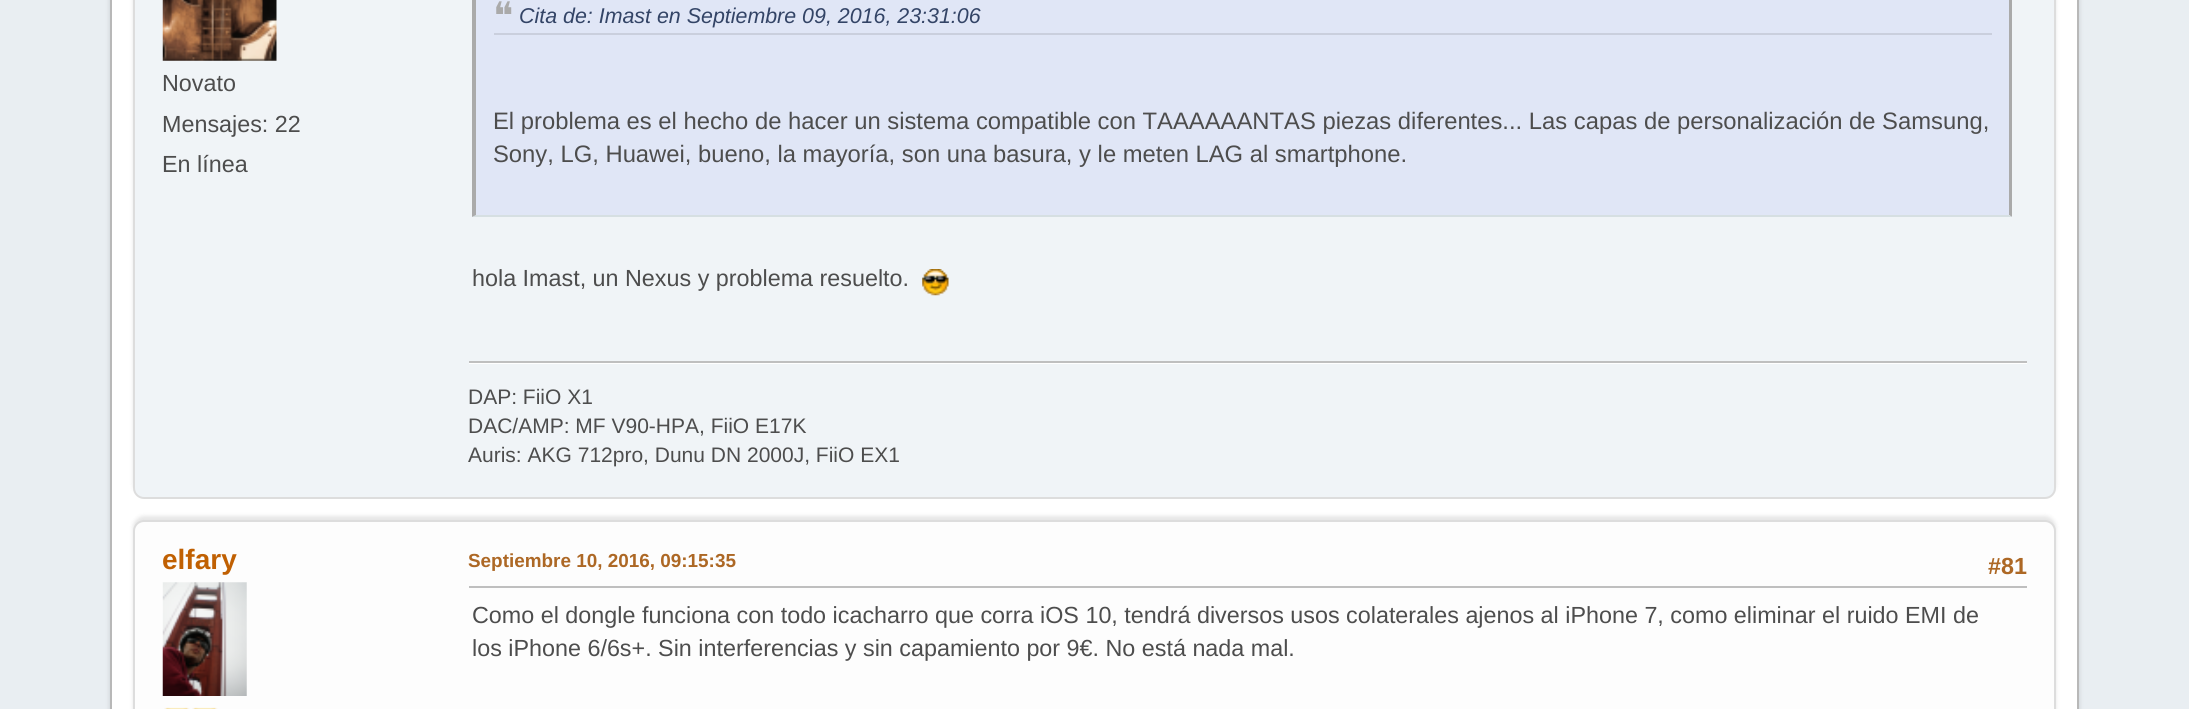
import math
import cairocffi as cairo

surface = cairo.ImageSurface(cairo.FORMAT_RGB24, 2189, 709)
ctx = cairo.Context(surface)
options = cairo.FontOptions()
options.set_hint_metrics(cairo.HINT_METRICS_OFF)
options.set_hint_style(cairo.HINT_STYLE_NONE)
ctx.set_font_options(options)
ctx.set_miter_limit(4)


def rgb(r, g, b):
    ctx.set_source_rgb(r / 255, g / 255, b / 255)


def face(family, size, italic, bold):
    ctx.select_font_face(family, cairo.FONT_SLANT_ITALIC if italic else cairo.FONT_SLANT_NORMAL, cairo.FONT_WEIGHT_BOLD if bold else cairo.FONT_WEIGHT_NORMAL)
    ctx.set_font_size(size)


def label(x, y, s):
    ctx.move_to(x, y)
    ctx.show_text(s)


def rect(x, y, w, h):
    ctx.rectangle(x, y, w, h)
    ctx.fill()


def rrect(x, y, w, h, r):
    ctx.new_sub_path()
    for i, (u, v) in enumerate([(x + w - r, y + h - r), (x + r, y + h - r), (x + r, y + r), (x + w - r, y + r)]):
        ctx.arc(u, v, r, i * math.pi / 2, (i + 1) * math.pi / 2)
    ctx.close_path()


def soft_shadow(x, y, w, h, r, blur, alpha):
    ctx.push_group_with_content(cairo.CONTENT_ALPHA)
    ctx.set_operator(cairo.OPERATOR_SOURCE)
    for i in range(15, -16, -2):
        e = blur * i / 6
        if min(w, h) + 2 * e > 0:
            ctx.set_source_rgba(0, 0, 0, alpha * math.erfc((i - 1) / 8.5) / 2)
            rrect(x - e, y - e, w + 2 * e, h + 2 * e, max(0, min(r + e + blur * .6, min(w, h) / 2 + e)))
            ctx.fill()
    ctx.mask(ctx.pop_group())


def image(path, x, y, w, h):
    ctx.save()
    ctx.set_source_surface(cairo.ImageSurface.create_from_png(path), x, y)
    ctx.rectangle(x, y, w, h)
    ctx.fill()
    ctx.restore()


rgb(233, 238, 242)
ctx.paint()
rgb(0, 0, 0)
soft_shadow(110, -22, 1969, 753, 14, 2.5, 0.14)
rgb(255, 255, 255)
ctx.rectangle(111, -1, 1967, 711)
ctx.fill_preserve()
rgb(184, 184, 184)
ctx.stroke()
rgb(0, 0, 0)
soft_shadow(133, -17, 1923, 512, 11, 2, 0.1)
rgb(240, 244, 247)
rrect(134, -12, 1921, 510, 10)
ctx.fill_preserve()
rgb(221, 221, 221)
ctx.stroke()
image('image0.png', 162, 0, 115, 61)
face('Liberation Sans', 23.33, 0, 0)
rgb(77, 77, 77)
label(162, 91, 'Novato')
label(162, 132, 'Mensajes: 22')
label(162, 172, 'En línea')
rgb(224, 230, 246)
rect(476, 0, 1533, 215)
rgb(170, 170, 170)
ctx.new_path()
ctx.move_to(2012, -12)
ctx.line_to(2012, 217)
ctx.line_to(2009, 215)
ctx.line_to(2009, -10)
ctx.close_path()
ctx.fill()
rgb(214, 223, 226)
ctx.new_path()
ctx.move_to(2012, 217)
ctx.line_to(472, 217)
ctx.line_to(476, 215)
ctx.line_to(2009, 215)
ctx.close_path()
ctx.fill()
rgb(170, 170, 170)
ctx.new_path()
ctx.move_to(472, 217)
ctx.line_to(472, -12)
ctx.line_to(476, -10)
ctx.line_to(476, 215)
ctx.close_path()
ctx.fill()
rgb(202, 207, 221)
rect(494, 33, 1498, 2)
face('DejaVu Sans', 38, 0, 0)
rgb(170, 170, 170)
label(493, 29, '❝')
face('Liberation Sans', 21.4, 1, 0)
rgb(51, 68, 102)
label(519, 23, 'Cita de: Imast en Septiembre 09, 2016, 23:31:06')
face('Liberation Sans', 23.8, 0, 0)
rgb(77, 77, 77)
label(493, 129, 'El problema es el hecho de hacer un sistema compatible con TAAAAAANTAS piezas diferentes... Las capas de personalización de Samsung,')
label(493, 162, 'Sony, LG, Huawei, bueno, la mayoría, son una basura, y le meten LAG al smartphone.')
face('Liberation Sans', 23.33, 0, 0)
label(472, 286, 'hola Imast, un Nexus y problema resuelto.')
image('image1.png', 922, 269, 27, 27)
rgb(255, 255, 255)
rect(469, 363, 1558, 1)
rgb(191, 191, 191)
rect(469, 361, 1558, 2)
face('Liberation Sans', 21, 0, 0)
rgb(77, 77, 77)
label(468, 404, 'DAP: FiiO X1')
label(468, 433, 'DAC/AMP: MF V90-HPA, FiiO E17K')
label(468, 462, 'Auris: AKG 712pro, Dunu DN 2000J, FiiO EX1')
rgb(0, 0, 0)
soft_shadow(133, 516, 1923, 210, 11, 2, 0.1)
rgb(253, 253, 253)
rrect(134, 521, 1921, 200, 10)
ctx.fill_preserve()
rgb(221, 221, 221)
ctx.stroke()
face('Liberation Sans', 28, 0, 1)
rgb(192, 96, 2)
label(162, 569, 'elfary')
image('image2.png', 162, 582, 85, 114)
image('image3.png', 164, 707, 26, 2)
image('image3.png', 192, 707, 26, 2)
face('Liberation Sans', 18.9, 0, 1)
rgb(173, 104, 37)
label(468, 567, 'Septiembre 10, 2016, 09:15:35')
face('Liberation Sans', 23.33, 0, 1)
label(1988, 574, '#81')
rgb(191, 191, 191)
rect(469, 586, 1558, 2)
face('Liberation Sans', 23.33, 0, 0)
rgb(77, 77, 77)
label(472, 623, 'Como el dongle funciona con todo icacharro que corra iOS 10, tendrá diversos usos colaterales ajenos al iPhone 7, como eliminar el ruido EMI de')
label(472, 656, 'los iPhone 6/6s+. Sin interferencias y sin capamiento por 9€. No está nada mal.')
surface.write_to_png('render.png')
